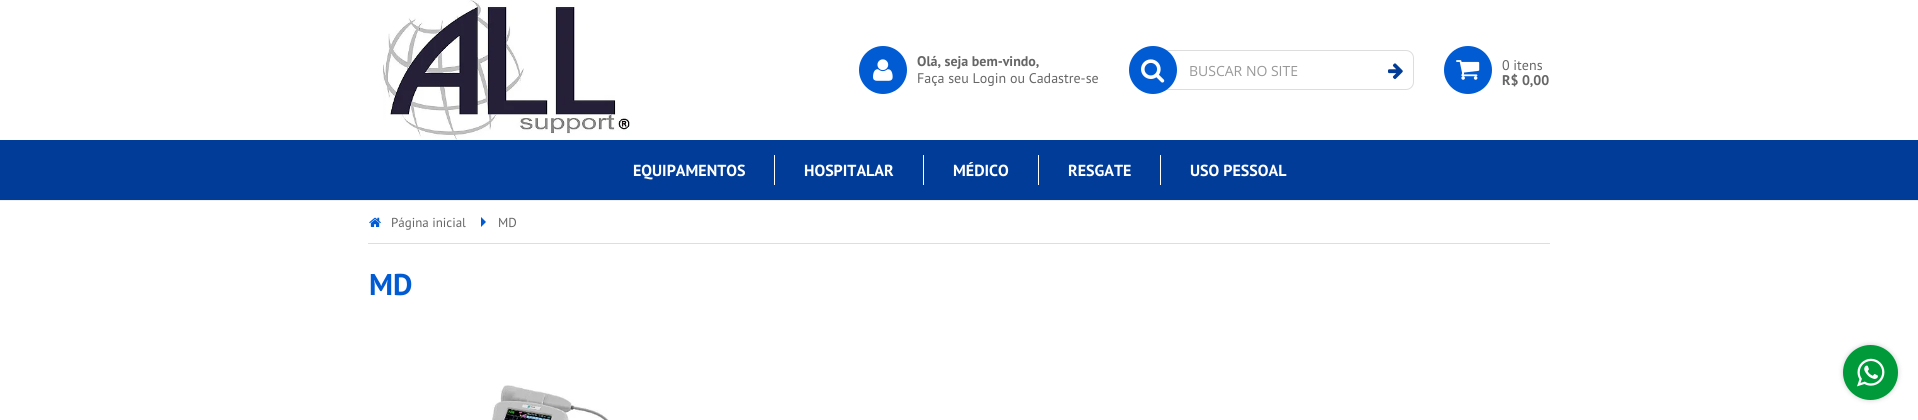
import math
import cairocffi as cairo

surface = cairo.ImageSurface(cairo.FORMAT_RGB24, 1918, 420)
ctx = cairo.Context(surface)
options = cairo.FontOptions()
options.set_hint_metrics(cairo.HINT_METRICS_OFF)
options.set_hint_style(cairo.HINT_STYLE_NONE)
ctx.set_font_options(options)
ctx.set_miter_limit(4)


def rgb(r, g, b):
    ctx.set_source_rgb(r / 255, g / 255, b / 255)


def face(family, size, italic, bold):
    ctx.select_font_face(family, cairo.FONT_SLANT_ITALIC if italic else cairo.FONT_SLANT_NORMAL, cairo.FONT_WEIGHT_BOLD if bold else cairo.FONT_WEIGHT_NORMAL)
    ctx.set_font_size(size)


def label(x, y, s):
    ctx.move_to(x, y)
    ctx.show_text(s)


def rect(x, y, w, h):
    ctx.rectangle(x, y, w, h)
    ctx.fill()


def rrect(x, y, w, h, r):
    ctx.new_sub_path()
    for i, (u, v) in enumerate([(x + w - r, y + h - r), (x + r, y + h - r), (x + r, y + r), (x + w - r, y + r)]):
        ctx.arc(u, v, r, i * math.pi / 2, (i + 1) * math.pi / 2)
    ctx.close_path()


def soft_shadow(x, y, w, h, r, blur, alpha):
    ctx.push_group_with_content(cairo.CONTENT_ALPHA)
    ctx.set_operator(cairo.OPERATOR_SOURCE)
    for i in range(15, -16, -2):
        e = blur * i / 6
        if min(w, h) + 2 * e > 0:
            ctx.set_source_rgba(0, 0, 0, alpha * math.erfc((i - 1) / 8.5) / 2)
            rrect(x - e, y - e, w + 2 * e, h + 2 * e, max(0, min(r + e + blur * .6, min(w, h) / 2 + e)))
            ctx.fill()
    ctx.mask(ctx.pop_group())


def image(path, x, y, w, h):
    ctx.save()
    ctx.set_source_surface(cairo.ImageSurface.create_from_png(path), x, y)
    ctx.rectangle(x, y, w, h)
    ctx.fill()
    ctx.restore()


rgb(255, 255, 255)
ctx.paint()
rgb(238, 238, 238)
rect(0, 200, 1918, 1)
image('image0.png', 383, 0, 247, 140)
rgb(1, 92, 212)
ctx.arc(883, 70, 24, 0, 2 * math.pi)
ctx.fill()
image('image1.png', 873, 59, 20, 22)
face('PT Sans', 14, 0, 1)
rgb(102, 102, 102)
label(917, 66, 'Olá, seja bem-vindo,')
face('PT Sans', 14, 0, 0)
label(917, 83, 'Faça seu Login ou Cadastre-se')
rrect(1149.5, 50.5, 264, 39, 7.5)
rgb(221, 221, 221)
ctx.set_line_width(1)
ctx.stroke()
rgb(1, 92, 212)
ctx.arc(1153, 70, 24, 0, 2 * math.pi)
ctx.fill()
image('image2.png', 1141, 59, 24, 24)
face('Open Sans', 14, 0, 0)
rgb(153, 153, 153)
label(1189, 76, 'BUSCAR NO SITE')
image('image3.png', 1388, 63, 15, 16)
rgb(1, 92, 212)
ctx.arc(1468, 70, 24, 0, 2 * math.pi)
ctx.fill()
image('image4.png', 1456, 60, 24, 20)
face('PT Sans', 14, 0, 0)
rgb(102, 102, 102)
label(1502, 70, '0 itens')
face('PT Sans', 14, 0, 1)
label(1502, 85, 'R$ 0,00')
rgb(1, 61, 152)
rect(0, 140, 1918, 60)
face('PT Sans', 16, 0, 1)
rgb(255, 255, 255)
label(633, 176, 'EQUIPAMENTOS')
rect(774, 155, 1, 30)
label(804, 176, 'HOSPITALAR')
rect(923, 155, 1, 30)
label(953, 176, 'MÉDICO')
rect(1038, 155, 1, 30)
label(1068, 176, 'RESGATE')
rect(1160, 155, 1, 30)
label(1190, 176, 'USO PESSOAL')
image('image5.png', 369, 217, 12, 10)
face('PT Sans', 13, 0, 0)
rgb(102, 102, 102)
label(391, 227, 'Página inicial')
rgb(1, 92, 212)
ctx.new_path()
ctx.move_to(481, 227)
ctx.line_to(481, 217)
ctx.line_to(486, 222)
ctx.close_path()
ctx.fill()
rgb(102, 102, 102)
label(498, 227, 'MD')
rgb(222, 222, 222)
rect(368, 243, 1182, 1)
face('PT Sans', 30, 0, 1)
rgb(1, 92, 212)
label(369, 295, 'MD')
image('image6.png', 492, 385, 117, 35)
rgb(0, 0, 0)
soft_shadow(1843, 345, 55, 55, 27.5, 2.5, 0.2)
rgb(0, 154, 58)
ctx.arc(1870.5, 372.5, 27.5, 0, 2 * math.pi)
ctx.fill()
image('image7.png', 1857, 358, 28, 29)
surface.write_to_png('render.png')
